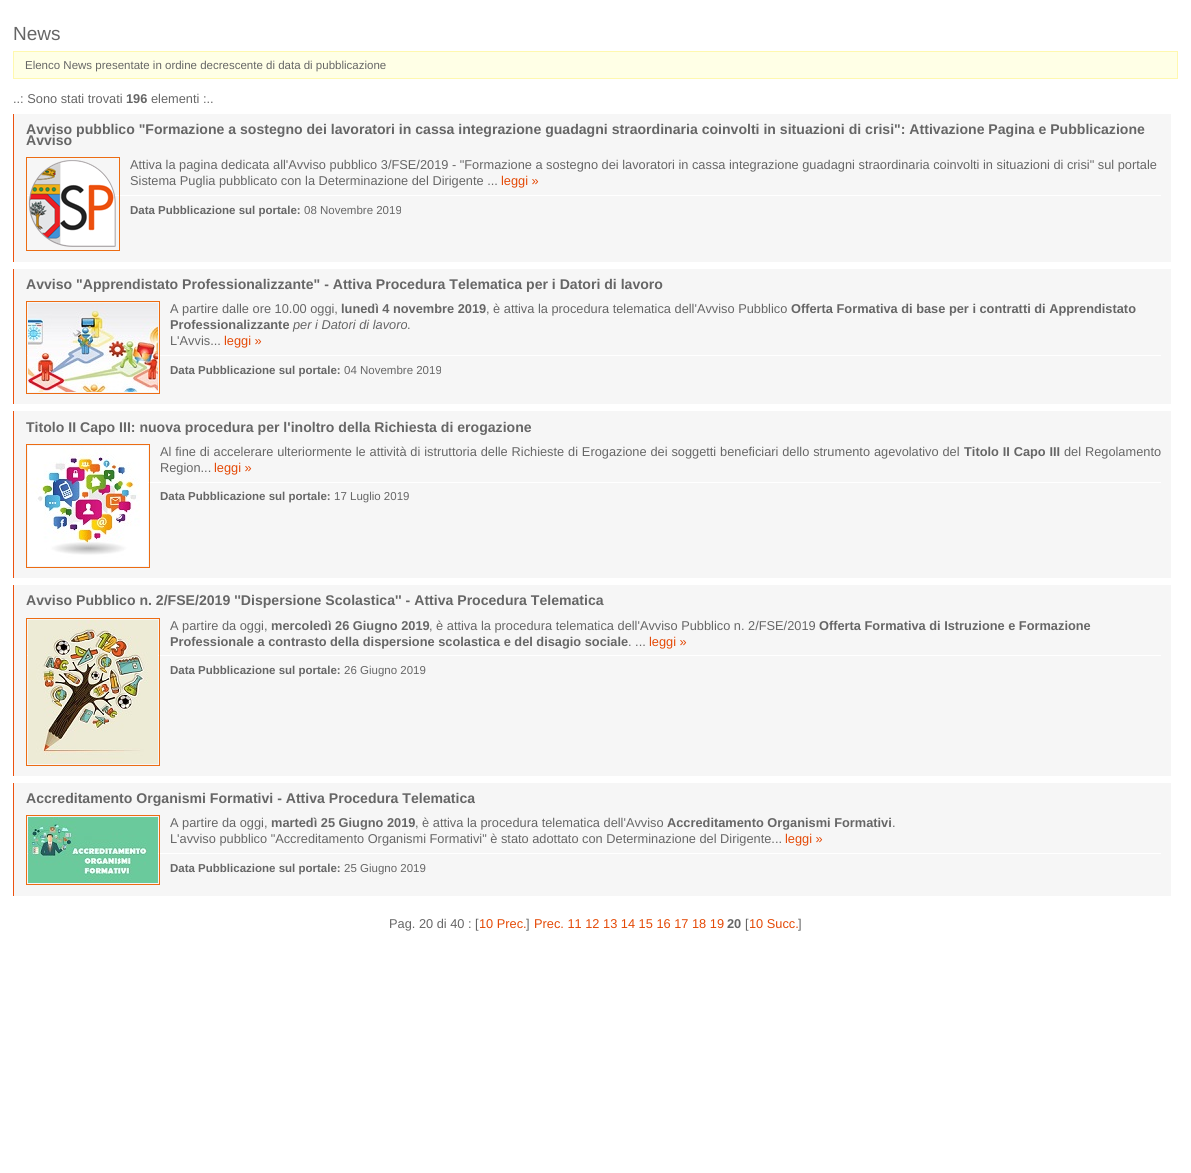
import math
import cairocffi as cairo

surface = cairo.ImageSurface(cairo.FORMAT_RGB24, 1191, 1173)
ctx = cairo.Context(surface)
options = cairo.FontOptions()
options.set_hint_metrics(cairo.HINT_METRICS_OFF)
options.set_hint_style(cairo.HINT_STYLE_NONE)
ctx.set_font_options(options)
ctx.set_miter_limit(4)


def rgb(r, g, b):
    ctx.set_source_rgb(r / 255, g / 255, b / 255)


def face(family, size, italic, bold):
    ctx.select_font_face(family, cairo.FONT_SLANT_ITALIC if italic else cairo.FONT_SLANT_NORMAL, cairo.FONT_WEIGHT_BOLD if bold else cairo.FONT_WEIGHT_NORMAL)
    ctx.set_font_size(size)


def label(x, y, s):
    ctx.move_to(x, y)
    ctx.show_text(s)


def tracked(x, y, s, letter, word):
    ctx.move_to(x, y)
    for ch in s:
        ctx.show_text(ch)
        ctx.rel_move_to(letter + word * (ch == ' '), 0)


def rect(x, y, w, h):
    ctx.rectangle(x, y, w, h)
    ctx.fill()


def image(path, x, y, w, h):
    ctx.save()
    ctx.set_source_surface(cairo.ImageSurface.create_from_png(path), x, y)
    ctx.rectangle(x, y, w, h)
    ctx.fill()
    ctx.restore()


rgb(255, 255, 255)
ctx.paint()
face('Liberation Sans', 19, 0, 0)
rgb(102, 102, 102)
label(13, 40, 'News')
rgb(255, 255, 230)
ctx.rectangle(13.5, 51.5, 1164, 27)
ctx.fill_preserve()
rgb(255, 248, 175)
ctx.set_line_width(1)
ctx.stroke()
face('Liberation Sans', 11.5, 0, 0)
rgb(102, 102, 102)
label(25, 69, 'Elenco News presentate in ordine decrescente di data di pubblicazione')
face('Liberation Sans', 12.8, 0, 0)
label(13, 103, '..: Sono stati trovati')
face('Liberation Sans', 12.8, 0, 1)
label(126, 103, '196')
face('Liberation Sans', 12.8, 0, 0)
label(151, 103, 'elementi :..')
rgb(246, 246, 246)
rect(14, 114, 1157, 148)
rgb(236, 82, 16)
rect(13, 110, 1, 786)
rgb(255, 255, 255)
rect(9, 110, 5, 4)
face('Liberation Sans', 14.08, 0, 1)
rgb(102, 102, 102)
label(26, 134, 'Avviso pubblico "Formazione a sostegno dei lavoratori in cassa integrazione guadagni straordinaria coinvolti in situazioni di crisi": Attivazione Pagina e Pubblicazione')
label(26, 145, 'Avviso')
rgb(255, 255, 255)
rect(26, 195, 1135, 1)
ctx.rectangle(26.5, 157.5, 93, 93)
rgb(236, 108, 19)
ctx.stroke()
image('image0.png', 28, 160, 88, 87)
face('Liberation Sans', 12.8, 0, 0)
rgb(102, 102, 102)
label(130, 169, 'Attiva la pagina dedicata all\'Avviso pubblico 3/FSE/2019 - "Formazione a sostegno dei lavoratori in cassa integrazione guadagni straordinaria coinvolti in situazioni di crisi" sul portale')
label(130, 185, 'Sistema Puglia pubblicato con la Determinazione del Dirigente ...')
rgb(228, 73, 6)
label(501, 185, 'leggi »')
face('Liberation Sans', 11.5, 0, 1)
rgb(102, 102, 102)
label(130, 214, 'Data Pubblicazione sul portale:')
face('Liberation Sans', 11.5, 0, 0)
label(304, 214, '08 Novembre 2019')
rgb(246, 246, 246)
rect(14, 269, 1157, 135)
rgb(255, 255, 255)
rect(9, 262, 5, 7)
face('Liberation Sans', 14.08, 0, 1)
rgb(102, 102, 102)
label(26, 289, 'Avviso "Apprendistato Professionalizzante" - Attiva Procedura Telematica per i Datori di lavoro')
rgb(255, 255, 255)
rect(26, 355, 1135, 1)
ctx.rectangle(26.5, 301.5, 133, 92)
rgb(236, 108, 19)
ctx.stroke()
image('image1.png', 28, 303, 130, 89)
face('Liberation Sans', 12.8, 0, 0)
rgb(102, 102, 102)
label(170, 313, 'A partire dalle ore 10.00 oggi,')
face('Liberation Sans', 12.8, 0, 1)
label(341, 313, 'lunedì 4 novembre 2019')
face('Liberation Sans', 12.8, 0, 0)
label(486, 313, ', è attiva la procedura telematica dell\'Avviso Pubblico')
face('Liberation Sans', 12.8, 0, 1)
label(791, 313, 'Offerta Formativa di base per i contratti di Apprendistato')
label(170, 329, 'Professionalizzante')
face('Liberation Sans', 12.8, 1, 0)
label(293, 329, 'per i Datori di lavoro')
face('Liberation Sans', 12.8, 0, 0)
label(407, 329, '.')
label(170, 345, 'L\'Avvis...')
rgb(228, 73, 6)
label(224, 345, 'leggi »')
face('Liberation Sans', 11.5, 0, 1)
rgb(102, 102, 102)
label(170, 374, 'Data Pubblicazione sul portale:')
face('Liberation Sans', 11.5, 0, 0)
label(344, 374, '04 Novembre 2019')
rgb(246, 246, 246)
rect(14, 411, 1157, 167)
rgb(255, 255, 255)
rect(9, 404, 5, 7)
face('Liberation Sans', 14.08, 0, 1)
rgb(102, 102, 102)
label(26, 432, 'Titolo II Capo III: nuova procedura per l\'inoltro della Richiesta di erogazione')
rgb(255, 255, 255)
rect(26, 482, 1135, 1)
ctx.rectangle(26.5, 444.5, 123, 123)
rgb(236, 108, 19)
ctx.stroke()
image('image2.png', 28, 446, 120, 120)
face('Liberation Sans', 12.8, 0, 0)
rgb(102, 102, 102)
tracked(160, 456, 'Al fine di accelerare ulteriormente le attività di istruttoria delle Richieste di Erogazione dei soggetti beneficiari dello strumento agevolativo del', 0, 0.3)
face('Liberation Sans', 12.8, 0, 1)
tracked(964, 456, 'Titolo II Capo III', 0, 0.3)
face('Liberation Sans', 12.8, 0, 0)
tracked(1064, 456, 'del Regolamento', 0, 0.3)
label(160, 472, 'Region...')
rgb(228, 73, 6)
label(214, 472, 'leggi »')
face('Liberation Sans', 11.5, 0, 1)
rgb(102, 102, 102)
label(160, 500, 'Data Pubblicazione sul portale:')
face('Liberation Sans', 11.5, 0, 0)
label(334, 500, '17 Luglio 2019')
rgb(246, 246, 246)
rect(14, 585, 1157, 191)
rgb(255, 255, 255)
rect(9, 578, 5, 7)
face('Liberation Sans', 14.08, 0, 1)
rgb(102, 102, 102)
label(26, 605, 'Avviso Pubblico n. 2/FSE/2019 \'\'Dispersione Scolastica\'\' - Attiva Procedura Telematica')
rgb(255, 255, 255)
rect(26, 655, 1135, 1)
ctx.rectangle(26.5, 618.5, 133, 147)
rgb(236, 108, 19)
ctx.stroke()
image('image3.png', 28, 620, 130, 144)
face('Liberation Sans', 12.8, 0, 0)
rgb(102, 102, 102)
label(170, 630, 'A partire da oggi,')
face('Liberation Sans', 12.8, 0, 1)
label(271, 630, 'mercoledì 26 Giugno 2019')
face('Liberation Sans', 12.8, 0, 0)
label(429, 630, ', è attiva la procedura telematica dell\'Avviso Pubblico n. 2/FSE/2019')
face('Liberation Sans', 12.8, 0, 1)
label(819, 630, 'Offerta Formativa di Istruzione e Formazione')
label(170, 646, 'Professionale a contrasto della dispersione scolastica e del disagio sociale')
face('Liberation Sans', 12.8, 0, 0)
label(628, 646, '. ...')
rgb(228, 73, 6)
label(649, 646, 'leggi »')
face('Liberation Sans', 11.5, 0, 1)
rgb(102, 102, 102)
label(170, 674, 'Data Pubblicazione sul portale:')
face('Liberation Sans', 11.5, 0, 0)
label(344, 674, '26 Giugno 2019')
rgb(246, 246, 246)
rect(14, 783, 1157, 113)
rgb(255, 255, 255)
rect(9, 776, 5, 7)
face('Liberation Sans', 14.08, 0, 1)
rgb(102, 102, 102)
label(26, 803, 'Accreditamento Organismi Formativi - Attiva Procedura Telematica')
rgb(255, 255, 255)
rect(26, 853, 1135, 1)
ctx.rectangle(26.5, 815.5, 133, 69)
rgb(236, 108, 19)
ctx.stroke()
image('image4.png', 28, 817, 130, 66)
face('Liberation Sans', 12.8, 0, 0)
rgb(102, 102, 102)
label(170, 827, 'A partire da oggi,')
face('Liberation Sans', 12.8, 0, 1)
label(271, 827, 'martedì 25 Giugno 2019')
face('Liberation Sans', 12.8, 0, 0)
label(415, 827, ', è attiva la procedura telematica dell\'Avviso')
face('Liberation Sans', 12.8, 0, 1)
label(667, 827, 'Accreditamento Organismi Formativi')
face('Liberation Sans', 12.8, 0, 0)
label(892, 827, '.')
label(170, 843, 'L\'avviso pubblico "Accreditamento Organismi Formativi" è stato adottato con Determinazione del Dirigente...')
rgb(228, 73, 6)
label(785, 843, 'leggi »')
face('Liberation Sans', 11.5, 0, 1)
rgb(102, 102, 102)
label(170, 872, 'Data Pubblicazione sul portale:')
face('Liberation Sans', 11.5, 0, 0)
label(344, 872, '25 Giugno 2019')
face('Liberation Sans', 12.8, 0, 0)
label(389, 928, 'Pag. 20 di 40 : [')
rgb(228, 73, 6)
label(479, 928, '10 Prec.')
rgb(102, 102, 102)
label(526, 928, ']')
rgb(228, 73, 6)
label(534, 928, 'Prec. 11 12 13 14 15 16 17 18 19')
face('Liberation Sans', 12.8, 0, 1)
rgb(102, 102, 102)
label(727, 928, '20')
face('Liberation Sans', 12.8, 0, 0)
label(745, 928, '[')
rgb(228, 73, 6)
label(749, 928, '10 Succ.')
rgb(102, 102, 102)
label(798, 928, ']')
surface.write_to_png('render.png')
